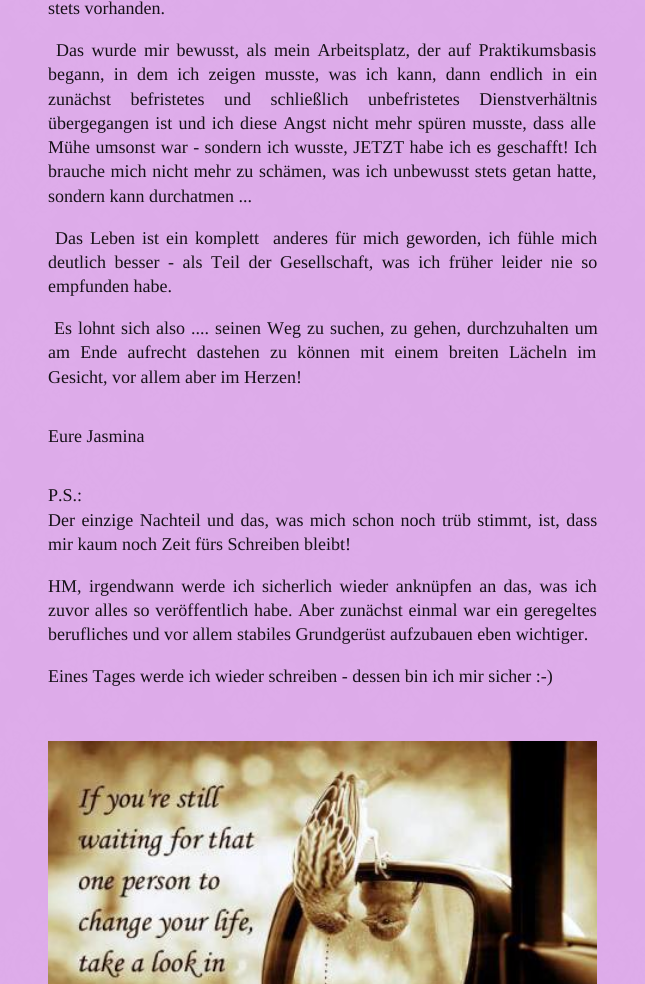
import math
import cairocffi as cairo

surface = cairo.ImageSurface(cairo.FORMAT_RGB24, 645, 984)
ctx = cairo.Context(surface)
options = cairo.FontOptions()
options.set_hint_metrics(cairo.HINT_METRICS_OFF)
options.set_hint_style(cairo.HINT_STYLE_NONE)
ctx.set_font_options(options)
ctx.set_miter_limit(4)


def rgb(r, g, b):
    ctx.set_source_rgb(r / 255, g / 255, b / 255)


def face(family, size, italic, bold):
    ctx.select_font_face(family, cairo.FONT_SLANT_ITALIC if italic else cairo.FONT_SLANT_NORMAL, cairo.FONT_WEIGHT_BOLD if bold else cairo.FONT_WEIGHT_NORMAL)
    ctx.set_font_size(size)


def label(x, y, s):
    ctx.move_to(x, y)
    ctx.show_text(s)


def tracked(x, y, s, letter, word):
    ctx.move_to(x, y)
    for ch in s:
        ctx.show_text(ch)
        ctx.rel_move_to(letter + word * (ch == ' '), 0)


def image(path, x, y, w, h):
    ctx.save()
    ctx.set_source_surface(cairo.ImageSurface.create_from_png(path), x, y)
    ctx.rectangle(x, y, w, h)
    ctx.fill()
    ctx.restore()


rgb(255, 255, 255)
ctx.paint()
image('image0.png', 0, 0, 645, 984)
face('Liberation Serif', 18, 0, 0)
rgb(22, 17, 24)
label(48, 14, 'stets vorhanden.')
tracked(56, 56, 'Das wurde mir bewusst, als mein Arbeitsplatz, der auf Praktikumsbasis', 0, 3)
tracked(48, 80, 'begann, in dem ich zeigen musste, was ich kann, dann endlich in ein', 0, 4.75)
tracked(48, 105, 'zunächst befristetes und schließlich unbefristetes Dienstverhältnis', 0, 15)
tracked(48, 129, 'übergegangen ist und ich diese Angst nicht mehr spüren musste, dass alle', 0, 1.75)
tracked(48, 153, 'Mühe umsonst war - sondern ich wusste, JETZT habe ich es geschafft! Ich', 0, 0.9)
tracked(48, 177, 'brauche mich nicht mehr zu schämen, was ich unbewusst stets getan hatte,', 0, 1.1)
label(48, 202, 'sondern kann durchatmen ...')
tracked(55, 244, 'Das Leben ist ein komplett  anderes für mich geworden, ich fühle mich', 0, 2.5)
tracked(48, 268, 'deutlich besser - als Teil der Gesellschaft, was ich früher leider nie so', 0, 4)
label(48, 292, 'empfunden habe.')
tracked(54, 334, 'Es lohnt sich also .... seinen Weg zu suchen, zu gehen, durchzuhalten um', 0, 1.5)
tracked(48, 358, 'am Ende aufrecht dastehen zu können mit einem breiten Lächeln im', 0, 5.75)
label(48, 383, 'Gesicht, vor allem aber im Herzen!')
label(48, 442, 'Eure Jasmina')
label(48, 501, 'P.S.:')
tracked(48, 526, 'Der einzige Nachteil und das, was mich schon noch trüb stimmt, ist, dass', 0, 1.9)
label(48, 550, 'mir kaum noch Zeit fürs Schreiben bleibt!')
tracked(48, 592, 'HM, irgendwann werde ich sicherlich wieder anknüpfen an das, was ich', 0, 2.9)
tracked(48, 616, 'zuvor alles so veröffentlich habe. Aber zunächst einmal war ein geregeltes', 0, 1.25)
label(48, 640, 'berufliches und vor allem stabiles Grundgerüst aufzubauen eben wichtiger.')
label(48, 682, 'Eines Tages werde ich wieder schreiben - dessen bin ich mir sicher :-)')
image('image1.png', 48, 741, 549, 243)
surface.write_to_png('render.png')
